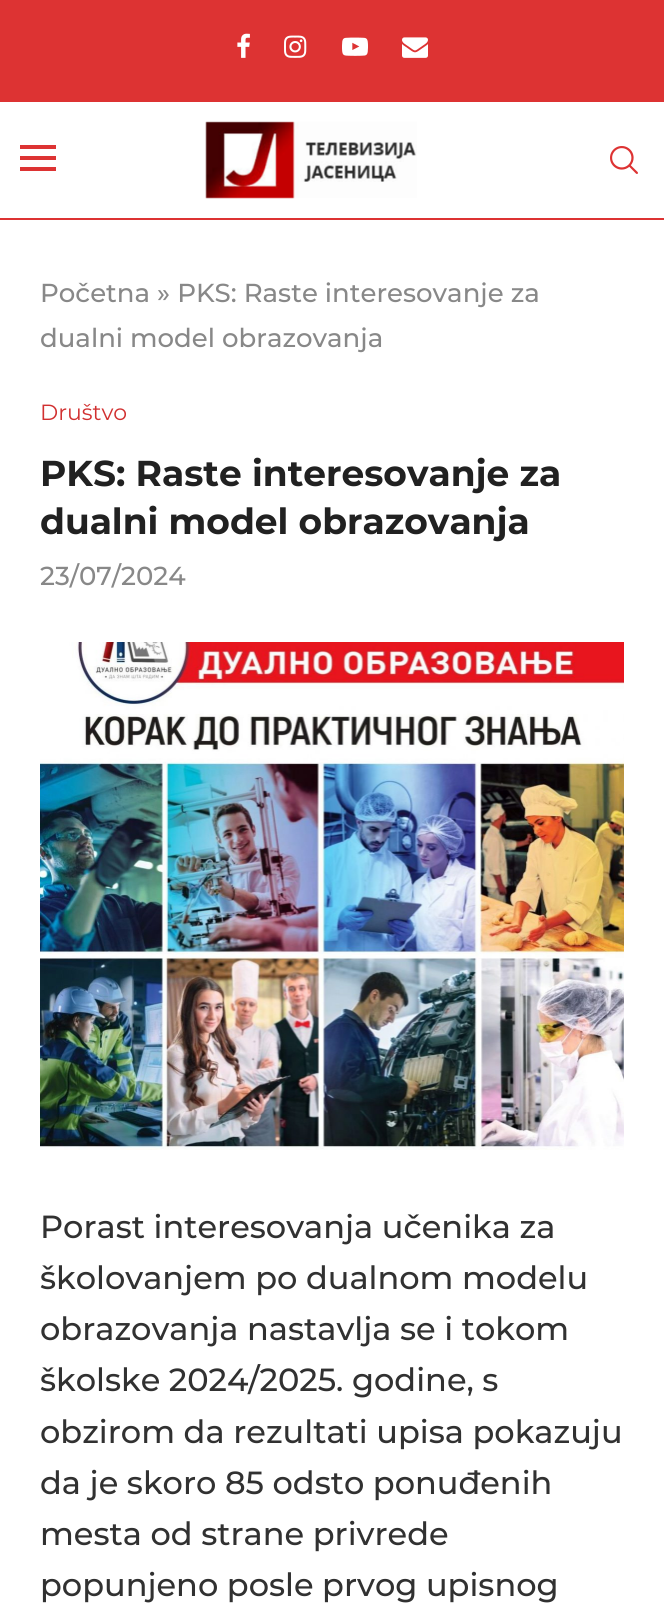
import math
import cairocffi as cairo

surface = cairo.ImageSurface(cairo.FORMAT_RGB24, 664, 1617)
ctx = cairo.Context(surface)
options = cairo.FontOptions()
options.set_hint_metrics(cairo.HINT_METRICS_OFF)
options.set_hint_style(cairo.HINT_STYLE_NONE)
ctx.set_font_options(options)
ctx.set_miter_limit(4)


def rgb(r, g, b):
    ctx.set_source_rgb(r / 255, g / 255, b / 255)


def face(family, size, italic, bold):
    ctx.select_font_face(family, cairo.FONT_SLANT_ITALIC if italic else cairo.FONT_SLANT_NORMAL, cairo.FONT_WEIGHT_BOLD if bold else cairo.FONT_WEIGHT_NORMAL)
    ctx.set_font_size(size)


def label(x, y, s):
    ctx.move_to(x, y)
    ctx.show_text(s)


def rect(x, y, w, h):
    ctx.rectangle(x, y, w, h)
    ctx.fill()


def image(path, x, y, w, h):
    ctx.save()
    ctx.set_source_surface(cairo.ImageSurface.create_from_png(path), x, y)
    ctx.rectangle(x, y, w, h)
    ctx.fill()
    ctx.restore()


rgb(255, 255, 255)
ctx.paint()
rgb(221, 51, 51)
rect(0, 0, 664, 102)
image('image0.png', 237, 33, 13, 25)
image('image1.png', 284, 35, 23, 23)
image('image2.png', 342, 37, 26, 19)
image('image3.png', 402, 37, 26, 21)
rect(0, 218, 664, 2)
rect(20, 145, 36, 4)
rect(20, 156, 36, 4)
rect(20, 167, 36, 4)
image('image4.png', 205, 121, 212, 78)
image('image5.png', 610, 146, 28, 28)
face('Montserrat Medium', 26, 0, 0)
rgb(136, 136, 136)
label(40, 302, 'Početna » PKS: Raste interesovanje za')
label(40, 347, 'dualni model obrazovanja')
face('Montserrat', 22, 0, 0)
rgb(209, 48, 48)
label(40, 420, 'Društvo')
face('Montserrat', 36, 0, 1)
rgb(33, 33, 33)
label(40, 486, 'PKS: Raste interesovanje za')
label(40, 534, 'dualni model obrazovanja')
face('Montserrat Medium', 26, 0, 0)
rgb(136, 136, 136)
label(40, 585, '23/07/2024')
image('image6.png', 40, 642, 584, 508)
face('Montserrat Medium', 32, 0, 0)
rgb(49, 49, 49)
label(40, 1238, 'Porast interesovanja učenika za')
label(40, 1289, 'školovanjem po dualnom modelu')
label(40, 1340, 'obrazovanja nastavlja se i tokom')
label(40, 1391, 'školske 2024/2025. godine, s')
label(40, 1443, 'obzirom da rezultati upisa pokazuju')
label(40, 1494, 'da je skoro 85 odsto ponuđenih')
label(40, 1545, 'mesta od strane privrede')
label(40, 1596, 'popunjeno posle prvog upisnog')
surface.write_to_png('render.png')
